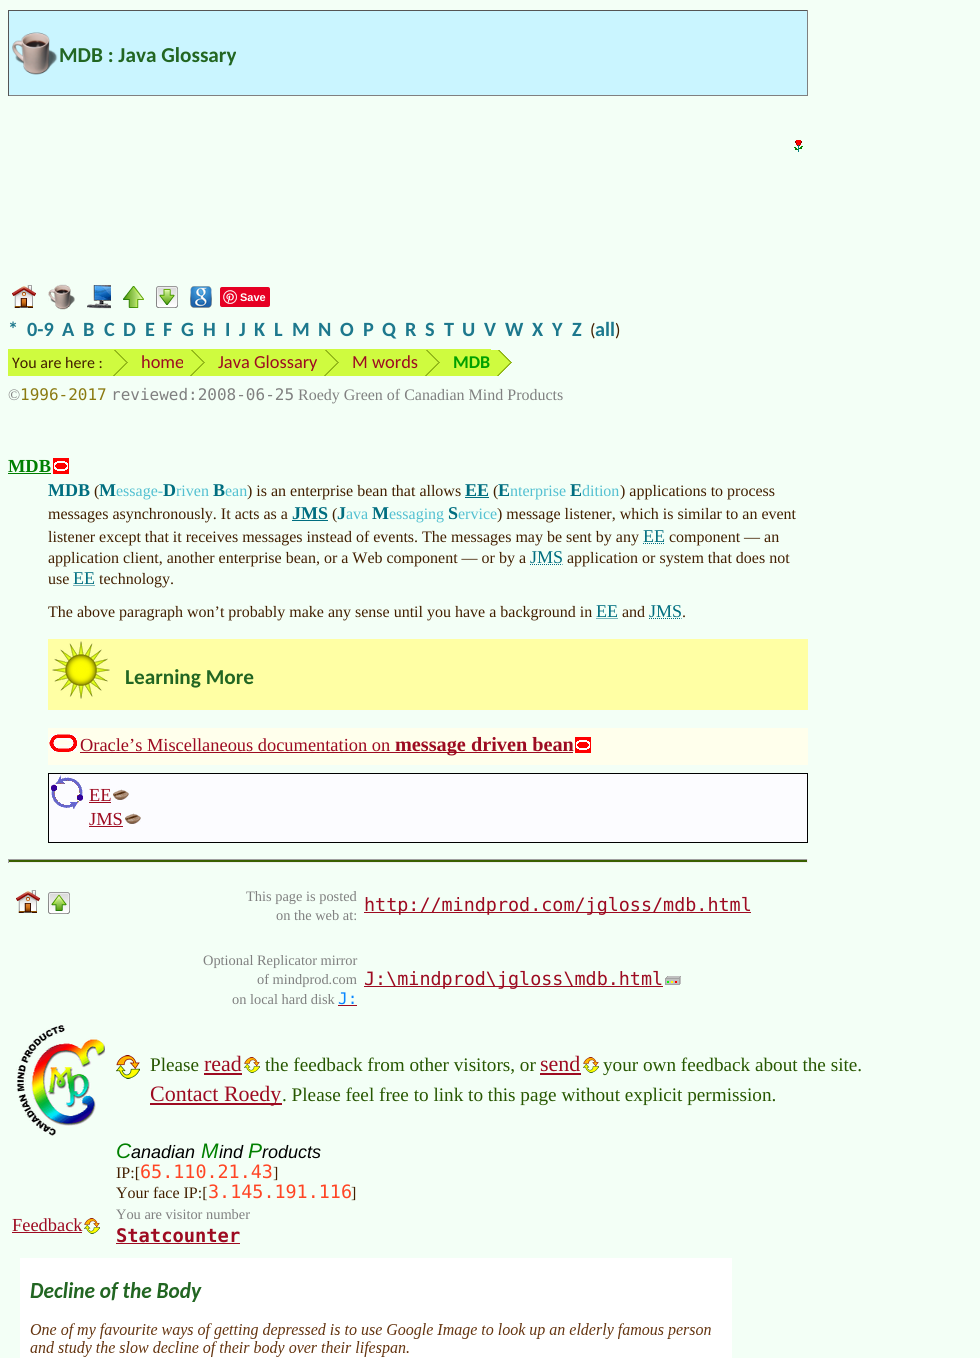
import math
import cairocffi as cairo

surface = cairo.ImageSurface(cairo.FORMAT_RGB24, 980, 1358)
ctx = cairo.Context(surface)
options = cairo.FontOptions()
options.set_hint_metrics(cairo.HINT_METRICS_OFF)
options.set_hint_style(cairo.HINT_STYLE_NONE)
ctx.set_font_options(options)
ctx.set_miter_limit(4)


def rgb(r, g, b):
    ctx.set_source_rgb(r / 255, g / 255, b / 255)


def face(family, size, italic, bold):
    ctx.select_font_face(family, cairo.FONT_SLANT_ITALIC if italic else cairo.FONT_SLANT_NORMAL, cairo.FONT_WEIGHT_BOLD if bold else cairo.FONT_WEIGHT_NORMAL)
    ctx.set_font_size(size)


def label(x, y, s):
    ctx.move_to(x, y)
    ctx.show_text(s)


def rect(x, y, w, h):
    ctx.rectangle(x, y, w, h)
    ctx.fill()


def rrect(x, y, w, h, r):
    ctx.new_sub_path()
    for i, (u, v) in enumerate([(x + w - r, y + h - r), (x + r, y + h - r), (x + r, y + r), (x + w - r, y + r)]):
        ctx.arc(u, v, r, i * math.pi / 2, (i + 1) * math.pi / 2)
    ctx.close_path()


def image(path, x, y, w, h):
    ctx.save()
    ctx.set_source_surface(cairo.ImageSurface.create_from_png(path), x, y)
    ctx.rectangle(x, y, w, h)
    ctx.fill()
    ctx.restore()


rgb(243, 255, 246)
ctx.paint()
rgb(202, 245, 255)
rect(9, 11, 798, 84)
image('image0.png', 12, 32, 46, 43)
rgb(85, 85, 85)
rect(8, 10, 800, 1)
rgb(128, 128, 128)
rect(807, 10, 1, 86)
rect(8, 95, 800, 1)
rgb(85, 85, 85)
rect(8, 10, 1, 86)
face('Carlito', 21.25, 0, 1)
rgb(34, 102, 34)
label(59, 62, 'MDB : Java Glossary')
image('image1.png', 794, 140, 9, 12)
image('image2.png', 12, 285, 24, 23)
image('image3.png', 48, 284, 27, 26)
image('image4.png', 87, 285, 24, 24)
image('image5.png', 123, 286, 21, 22)
image('image6.png', 156, 286, 22, 22)
image('image7.png', 190, 286, 22, 22)
rgb(230, 0, 35)
rrect(220, 287, 50, 20, 2)
ctx.fill()
image('image8.png', 223, 290, 14, 14)
face('Liberation Sans', 11, 0, 1)
rgb(255, 255, 255)
label(240, 301, 'Save')
face('Carlito', 20.25, 0, 1)
rgb(29, 120, 141)
label(8, 336, '*')
label(27, 336, '0-9')
label(62, 336, 'A')
label(83, 336, 'B')
label(104, 336, 'C')
label(123, 336, 'D')
label(145, 336, 'E')
label(163, 336, 'F')
label(181, 336, 'G')
label(203, 336, 'H')
label(225, 336, 'I')
label(239, 336, 'J')
label(254, 336, 'K')
label(274, 336, 'L')
label(292, 336, 'M')
label(318, 336, 'N')
label(340, 336, 'O')
label(363, 336, 'P')
label(382, 336, 'Q')
label(405, 336, 'R')
label(425, 336, 'S')
label(444, 336, 'T')
label(462, 336, 'U')
label(484, 336, 'V')
label(505, 336, 'W')
label(532, 336, 'X')
label(552, 336, 'Y')
label(572, 336, 'Z')
face('Carlito', 18, 0, 0)
rgb(66, 31, 0)
label(590, 336, '(')
face('Carlito', 20.25, 0, 1)
rgb(29, 120, 141)
label(595, 336, 'all')
face('Carlito', 18, 0, 0)
rgb(66, 31, 0)
label(615, 336, ')')
rgb(207, 251, 63)
rect(8, 349, 175, 27)
face('Carlito', 16, 0, 0)
rgb(66, 31, 0)
label(12, 368, 'You are here :')
image('image9.png', 113, 350, 15, 26)
face('Carlito', 18.4, 0, 0)
rgb(157, 11, 33)
label(141, 368, 'home')
rgb(207, 251, 63)
rect(183, 349, 134, 27)
image('image9.png', 190, 350, 15, 26)
rgb(157, 11, 33)
label(218, 368, 'Java Glossary')
rgb(207, 251, 63)
rect(317, 349, 174, 27)
image('image9.png', 324, 350, 15, 26)
rgb(157, 11, 33)
label(352, 368, 'M words')
image('image9.png', 425, 350, 15, 26)
face('Carlito', 18, 0, 1)
rgb(0, 160, 0)
label(453, 368, 'MDB')
image('image10.png', 491, 350, 21, 26)
face('Liberation Serif', 16, 0, 0)
rgb(128, 128, 128)
label(8, 400, '©')
face('DejaVu Sans Mono', 16, 0, 0)
rgb(139, 122, 17)
label(20, 400, '1996-2017')
rgb(128, 128, 128)
label(111, 400, 'reviewed:2008-06-25')
face('Liberation Serif', 16, 0, 0)
label(298, 400, 'Roedy Green of Canadian Mind Products')
face('Liberation Serif', 18.4, 0, 1)
rgb(0, 128, 0)
label(8, 472, 'MDB')
rect(8, 473, 43, 1)
image('image11.png', 53, 458, 16, 16)
face('Liberation Serif', 18, 0, 1)
rgb(0, 110, 128)
label(48, 496, 'MDB')
face('Liberation Serif', 16, 0, 0)
rgb(66, 31, 0)
label(94, 496, '(')
face('Liberation Serif', 18, 0, 1)
rgb(0, 110, 128)
label(99, 496, 'M')
face('Liberation Serif', 16, 0, 0)
rgb(82, 192, 209)
label(116, 496, 'essage-')
face('Liberation Serif', 18, 0, 1)
rgb(0, 110, 128)
label(163, 496, 'D')
face('Liberation Serif', 16, 0, 0)
rgb(82, 192, 209)
label(176, 496, 'riven')
face('Liberation Serif', 18, 0, 1)
rgb(0, 110, 128)
label(213, 496, 'B')
face('Liberation Serif', 16, 0, 0)
rgb(82, 192, 209)
label(225, 496, 'ean')
rgb(66, 31, 0)
label(247, 496, ') is an enterprise bean that allows')
face('Liberation Serif', 18, 0, 1)
rgb(0, 110, 128)
label(465, 496, 'EE')
rect(465, 497, 24, 1)
face('Liberation Serif', 16, 0, 0)
rgb(66, 31, 0)
label(493, 496, '(')
face('Liberation Serif', 18, 0, 1)
rgb(0, 110, 128)
label(498, 496, 'E')
face('Liberation Serif', 16, 0, 0)
rgb(82, 192, 209)
label(510, 496, 'nterprise')
face('Liberation Serif', 18, 0, 1)
rgb(0, 110, 128)
label(570, 496, 'E')
face('Liberation Serif', 16, 0, 0)
rgb(82, 192, 209)
label(582, 496, 'dition')
rgb(66, 31, 0)
label(620, 496, ') applications to process')
label(48, 519, 'messages asynchronously. It acts as a')
face('Liberation Serif', 18, 0, 1)
rgb(0, 110, 128)
label(292, 519, 'JMS')
rect(292, 520, 36, 1)
face('Liberation Serif', 16, 0, 0)
rgb(66, 31, 0)
label(332, 519, '(')
face('Liberation Serif', 18, 0, 1)
rgb(0, 110, 128)
label(337, 519, 'J')
face('Liberation Serif', 16, 0, 0)
rgb(82, 192, 209)
label(346, 519, 'ava')
face('Liberation Serif', 18, 0, 1)
rgb(0, 110, 128)
label(372, 519, 'M')
face('Liberation Serif', 16, 0, 0)
rgb(82, 192, 209)
label(389, 519, 'essaging')
face('Liberation Serif', 18, 0, 1)
rgb(0, 110, 128)
label(448, 519, 'S')
face('Liberation Serif', 16, 0, 0)
rgb(82, 192, 209)
label(458, 519, 'ervice')
rgb(66, 31, 0)
label(497, 519, ') message listener, which is similar to an event')
label(48, 542, 'listener except that it receives messages instead of events. The messages may be sent by any')
face('Liberation Serif', 18, 0, 0)
rgb(0, 110, 128)
label(643, 542, 'EE')
ctx.new_path()
ctx.move_to(643, 543.5)
ctx.line_to(664.5, 543.5)
ctx.set_line_width(1)
ctx.set_dash([1, 1])
ctx.stroke()
face('Liberation Serif', 16, 0, 0)
rgb(66, 31, 0)
label(669, 542, 'component — an')
label(48, 563, 'application client, another enterprise bean, or a Web component — or by a')
face('Liberation Serif', 18, 0, 0)
rgb(0, 110, 128)
label(530, 563, 'JMS')
ctx.new_path()
ctx.move_to(530, 564.5)
ctx.line_to(562.5, 564.5)
ctx.stroke()
face('Liberation Serif', 16, 0, 0)
rgb(66, 31, 0)
label(567, 563, 'application or system that does not')
label(48, 584, 'use')
face('Liberation Serif', 18, 0, 0)
rgb(0, 110, 128)
label(73, 584, 'EE')
ctx.new_path()
ctx.move_to(73.5, 585.5)
ctx.line_to(95, 585.5)
ctx.stroke()
face('Liberation Serif', 16, 0, 0)
rgb(66, 31, 0)
label(99, 584, 'technology.')
label(48, 617, 'The above paragraph won’t probably make any sense until you have a background in')
face('Liberation Serif', 18, 0, 0)
rgb(0, 110, 128)
label(596, 617, 'EE')
ctx.new_path()
ctx.move_to(596.5, 618.5)
ctx.line_to(618, 618.5)
ctx.stroke()
face('Liberation Serif', 16, 0, 0)
rgb(66, 31, 0)
label(622, 617, 'and')
face('Liberation Serif', 18, 0, 0)
rgb(0, 110, 128)
label(649, 617, 'JMS')
ctx.new_path()
ctx.move_to(649, 618.5)
ctx.line_to(681.5, 618.5)
ctx.stroke()
face('Liberation Serif', 16, 0, 0)
rgb(66, 31, 0)
label(682, 617, '.')
rgb(255, 255, 164)
rect(48, 639, 760, 71)
image('image12.png', 52, 641, 58, 58)
face('Carlito', 21.25, 0, 1)
rgb(34, 102, 34)
label(125, 684, 'Learning More')
rgb(255, 255, 236)
rect(48, 728, 760, 37)
image('image13.png', 49, 734, 28, 18)
face('Liberation Serif', 18.4, 0, 0)
rgb(157, 11, 33)
label(80, 751, 'Oracle’s Miscellaneous documentation on')
rect(80, 752, 493, 1)
face('Liberation Serif', 20.25, 0, 1)
label(395, 751, 'message driven bean')
image('image11.png', 575, 737, 16, 16)
rgb(252, 252, 255)
rect(49, 774, 758, 68)
image('image14.png', 51, 775, 32, 34)
ctx.rectangle(48.5, 773.5, 759, 69)
rgb(0, 0, 0)
ctx.set_dash([])
ctx.stroke()
face('Liberation Serif', 18.4, 0, 0)
rgb(157, 11, 33)
label(89, 801, 'EE')
rect(89, 802, 22, 1)
image('image15.png', 113, 789, 16, 11)
label(89, 825, 'JMS')
rect(89, 826, 34, 1)
image('image15.png', 125, 813, 16, 11)
rgb(57, 96, 0)
rect(8, 860, 800, 2)
rgb(159, 159, 159)
rect(8, 859, 800, 1)
rgb(238, 238, 238)
rect(807, 859, 1, 4)
rect(8, 862, 800, 1)
rgb(159, 159, 159)
rect(8, 859, 1, 4)
image('image2.png', 16, 890, 24, 23)
image('image16.png', 48, 892, 22, 22)
face('Liberation Serif', 14.4, 0, 0)
rgb(128, 128, 128)
label(246, 901, 'This page is posted')
label(276, 920, 'on the web at:')
rgb(157, 11, 33)
rect(364, 912, 387, 1)
face('DejaVu Sans Mono', 18.4, 0, 0)
label(364, 911, 'http://mindprod.com/jgloss/mdb.html')
face('Liberation Serif', 14.4, 0, 0)
rgb(128, 128, 128)
label(203, 965, 'Optional Replicator mirror')
label(257, 984, 'of mindprod.com')
label(232, 1004, 'on local hard disk')
face('DejaVu Sans Mono', 16, 0, 0)
rgb(9, 134, 255)
label(338, 1004, 'J:')
rgb(157, 11, 33)
rect(338, 1005, 19, 1)
rect(364, 986, 299, 1)
face('DejaVu Sans Mono', 18.4, 0, 0)
label(364, 985, 'J:\\mindprod\\jgloss\\mdb.html')
image('image17.png', 665, 976, 16, 9)
image('image18.png', 16, 1024, 89, 112)
image('image19.png', 116, 1055, 24, 24)
face('Liberation Serif', 19.2, 0, 0)
rgb(39, 87, 0)
label(150, 1071, 'Please')
face('Liberation Serif', 22, 0, 0)
rgb(157, 11, 33)
label(204, 1071, 'read')
rect(204, 1073, 38, 2)
image('image20.png', 244, 1057, 16, 16)
face('Liberation Serif', 19.2, 0, 0)
rgb(39, 87, 0)
label(265, 1071, 'the feedback from other visitors, or')
face('Liberation Serif', 22, 0, 0)
rgb(157, 11, 33)
label(540, 1071, 'send')
rect(540, 1073, 41, 2)
image('image20.png', 583, 1057, 16, 16)
face('Liberation Serif', 19.2, 0, 0)
rgb(39, 87, 0)
label(603, 1071, 'your own feedback about the site.')
rgb(157, 11, 33)
rect(150, 1103, 132, 2)
face('Liberation Serif', 22, 0, 0)
label(150, 1101, 'Contact Roedy')
face('Liberation Serif', 19.2, 0, 0)
rgb(39, 87, 0)
label(282, 1101, '. Please feel free to link to this page without explicit permission.')
face('Liberation Sans', 21, 1, 0)
rgb(0, 128, 0)
label(116, 1158, 'C')
face('Liberation Sans', 18, 1, 0)
rgb(0, 0, 0)
label(131, 1158, 'anadian')
face('Liberation Sans', 21, 1, 0)
rgb(0, 128, 0)
label(201, 1158, 'M')
face('Liberation Sans', 18, 1, 0)
rgb(0, 0, 0)
label(219, 1158, 'ind')
face('Liberation Sans', 21, 1, 0)
rgb(0, 128, 0)
label(248, 1158, 'P')
face('Liberation Sans', 18, 1, 0)
rgb(0, 0, 0)
label(262, 1158, 'roducts')
face('Liberation Serif', 16, 0, 0)
rgb(66, 31, 0)
label(116, 1178, 'IP:[')
face('DejaVu Sans Mono', 18.4, 0, 0)
rgb(255, 69, 36)
label(140, 1178, '65.110.21.43')
face('Liberation Serif', 16, 0, 0)
rgb(66, 31, 0)
label(273, 1178, ']')
label(116, 1198, 'Your face IP:[')
face('DejaVu Sans Mono', 18.4, 0, 0)
rgb(255, 69, 36)
label(208, 1198, '3.145.191.116')
face('Liberation Serif', 16, 0, 0)
rgb(66, 31, 0)
label(351, 1198, ']')
face('Liberation Serif', 18.4, 0, 0)
rgb(157, 11, 33)
label(12, 1231, 'Feedback')
rect(12, 1232, 70, 1)
image('image20.png', 84, 1218, 16, 16)
face('Liberation Serif', 14.4, 0, 0)
rgb(128, 128, 128)
label(116, 1219, 'You are visitor number')
face('DejaVu Sans Mono', 18.75, 0, 1)
rgb(157, 11, 33)
label(116, 1242, 'Statcounter')
rect(116, 1243, 124, 1)
image('image21.png', 20, 1258, 712, 100)
surface.write_to_png('render.png')
